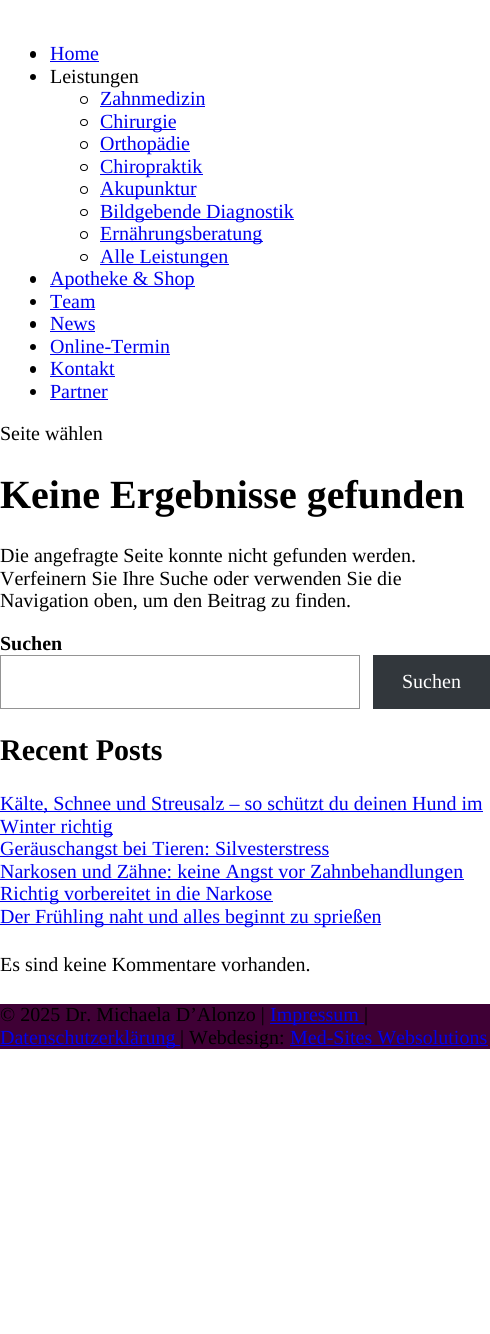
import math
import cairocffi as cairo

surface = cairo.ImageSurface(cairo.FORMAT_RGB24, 490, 1334)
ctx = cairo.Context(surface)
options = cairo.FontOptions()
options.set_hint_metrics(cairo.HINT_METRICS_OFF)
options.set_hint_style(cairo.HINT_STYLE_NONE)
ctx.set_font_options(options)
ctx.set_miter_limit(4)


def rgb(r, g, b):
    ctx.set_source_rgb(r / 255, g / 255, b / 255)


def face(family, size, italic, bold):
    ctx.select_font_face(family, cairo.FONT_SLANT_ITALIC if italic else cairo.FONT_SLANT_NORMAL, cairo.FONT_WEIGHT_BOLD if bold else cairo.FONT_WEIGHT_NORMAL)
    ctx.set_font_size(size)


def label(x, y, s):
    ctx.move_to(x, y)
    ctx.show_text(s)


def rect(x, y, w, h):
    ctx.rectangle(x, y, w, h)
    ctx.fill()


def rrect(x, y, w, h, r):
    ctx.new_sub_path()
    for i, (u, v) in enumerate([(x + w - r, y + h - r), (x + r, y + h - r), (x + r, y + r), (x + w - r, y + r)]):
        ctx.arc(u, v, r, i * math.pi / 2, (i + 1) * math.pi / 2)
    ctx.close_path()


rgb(255, 255, 255)
ctx.paint()
rgb(0, 0, 0)
rrect(30, 51, 6, 7, 3)
ctx.fill()
face('Liberation Serif', 20, 0, 0)
rgb(0, 0, 238)
label(50, 60, 'Home')
rect(50, 61, 49, 1)
rgb(0, 0, 0)
ctx.new_path()
ctx.arc(33, 77, 3, 0, 2 * math.pi)
ctx.fill()
label(50, 83, 'Leistungen')
ctx.new_path()
ctx.arc(84, 100, 3.5, 0, 2 * math.pi)
ctx.set_line_width(1)
ctx.stroke()
rgb(0, 0, 238)
label(100, 105, 'Zahnmedizin')
rect(100, 106, 105, 1)
rrect(80.5, 119.5, 7, 6, 3)
rgb(0, 0, 0)
ctx.stroke()
rgb(0, 0, 238)
rect(100, 129, 76, 1)
label(100, 128, 'Chirurgie')
ctx.new_path()
ctx.arc(84, 145, 3.5, 0, 2 * math.pi)
rgb(0, 0, 0)
ctx.stroke()
rgb(0, 0, 238)
rect(100, 151, 90, 1)
label(100, 150, 'Orthopädie')
rrect(80.5, 164.5, 7, 6, 3)
rgb(0, 0, 0)
ctx.stroke()
rgb(0, 0, 238)
rect(100, 174, 103, 1)
label(100, 173, 'Chiropraktik')
ctx.new_path()
ctx.arc(84, 190, 3.5, 0, 2 * math.pi)
rgb(0, 0, 0)
ctx.stroke()
rgb(0, 0, 238)
rect(100, 196, 96, 1)
label(100, 195, 'Akupunktur')
rrect(80.5, 209.5, 7, 6, 3)
rgb(0, 0, 0)
ctx.stroke()
rgb(0, 0, 238)
rect(100, 219, 194, 1)
label(100, 218, 'Bildgebende Diagnostik')
ctx.new_path()
ctx.arc(84, 235, 3.5, 0, 2 * math.pi)
rgb(0, 0, 0)
ctx.stroke()
rgb(0, 0, 238)
rect(100, 241, 163, 1)
label(100, 240, 'Ernährungsberatung')
rrect(80.5, 254.5, 7, 6, 3)
rgb(0, 0, 0)
ctx.stroke()
rgb(0, 0, 238)
rect(100, 264, 129, 1)
label(100, 263, 'Alle Leistungen')
rgb(0, 0, 0)
rrect(30, 276, 6, 7, 3)
ctx.fill()
rgb(0, 0, 238)
rect(50, 286, 145, 1)
label(50, 285, 'Apotheke & Shop')
rgb(0, 0, 0)
ctx.new_path()
ctx.arc(33, 302, 3, 0, 2 * math.pi)
ctx.fill()
rgb(0, 0, 238)
label(50, 308, 'Team')
rect(50, 309, 45, 1)
rgb(0, 0, 0)
rrect(30, 321, 6, 7, 3)
ctx.fill()
rgb(0, 0, 238)
label(50, 330, 'News')
rect(50, 331, 45, 1)
rgb(0, 0, 0)
ctx.new_path()
ctx.arc(33, 347, 3, 0, 2 * math.pi)
ctx.fill()
rgb(0, 0, 238)
label(50, 353, 'Online-Termin')
rect(50, 354, 120, 1)
rgb(0, 0, 0)
rrect(30, 366, 6, 7, 3)
ctx.fill()
rgb(0, 0, 238)
label(50, 375, 'Kontakt')
rect(50, 376, 65, 1)
rgb(0, 0, 0)
ctx.new_path()
ctx.arc(33, 392, 3, 0, 2 * math.pi)
ctx.fill()
rgb(0, 0, 238)
label(50, 398, 'Partner')
rect(50, 399, 58, 1)
rgb(0, 0, 0)
label(0, 440, 'Seite wählen')
face('Liberation Serif', 40, 0, 1)
label(0, 508, 'Keine Ergebnisse gefunden')
face('Liberation Serif', 20, 0, 0)
label(0, 562, 'Die angefragte Seite konnte nicht gefunden werden.')
label(0, 585, 'Verfeinern Sie Ihre Suche oder verwenden Sie die')
label(0, 607, 'Navigation oben, um den Beitrag zu finden.')
face('Liberation Serif', 20, 0, 1)
label(0, 650, 'Suchen')
ctx.rectangle(0.5, 655.5, 359, 53)
rgb(148, 148, 148)
ctx.stroke()
rgb(50, 55, 60)
rect(373, 655, 117, 54)
face('Liberation Serif', 20, 0, 0)
rgb(255, 255, 255)
label(402, 688, 'Suchen')
face('Liberation Serif', 30, 0, 1)
rgb(0, 0, 0)
label(0, 760, 'Recent Posts')
rgb(0, 0, 238)
rect(0, 811, 483, 1)
face('Liberation Serif', 20, 0, 0)
label(0, 810, 'Kälte, Schnee und Streusalz – so schützt du deinen Hund im')
rect(0, 834, 113, 1)
label(0, 833, 'Winter richtig')
rect(0, 856, 329, 1)
label(0, 855, 'Geräuschangst bei Tieren: Silvesterstress')
rect(0, 879, 464, 1)
label(0, 878, 'Narkosen und Zähne: keine Angst vor Zahnbehandlungen')
rect(0, 901, 273, 1)
label(0, 900, 'Richtig vorbereitet in die Narkose')
rect(0, 924, 381, 1)
label(0, 923, 'Der Frühling naht und alles beginnt zu sprießen')
rgb(0, 0, 0)
label(0, 971, 'Es sind keine Kommentare vorhanden.')
rgb(63, 0, 53)
rect(0, 1004, 490, 45)
rgb(0, 0, 0)
label(0, 1021, '© 2025 Dr. Michaela D’Alonzo |')
rgb(0, 0, 238)
rect(270, 1023, 94, 1)
label(270, 1021, 'Impressum')
rgb(0, 0, 0)
label(364, 1021, '|')
rgb(0, 0, 238)
rect(0, 1045, 180, 1)
label(0, 1044, 'Datenschutzerklärung')
rgb(0, 0, 0)
label(180, 1044, '| Webdesign:')
rgb(0, 0, 238)
label(290, 1044, 'Med-Sites Websolutions')
rect(290, 1045, 198, 1)
surface.write_to_png('render.png')
